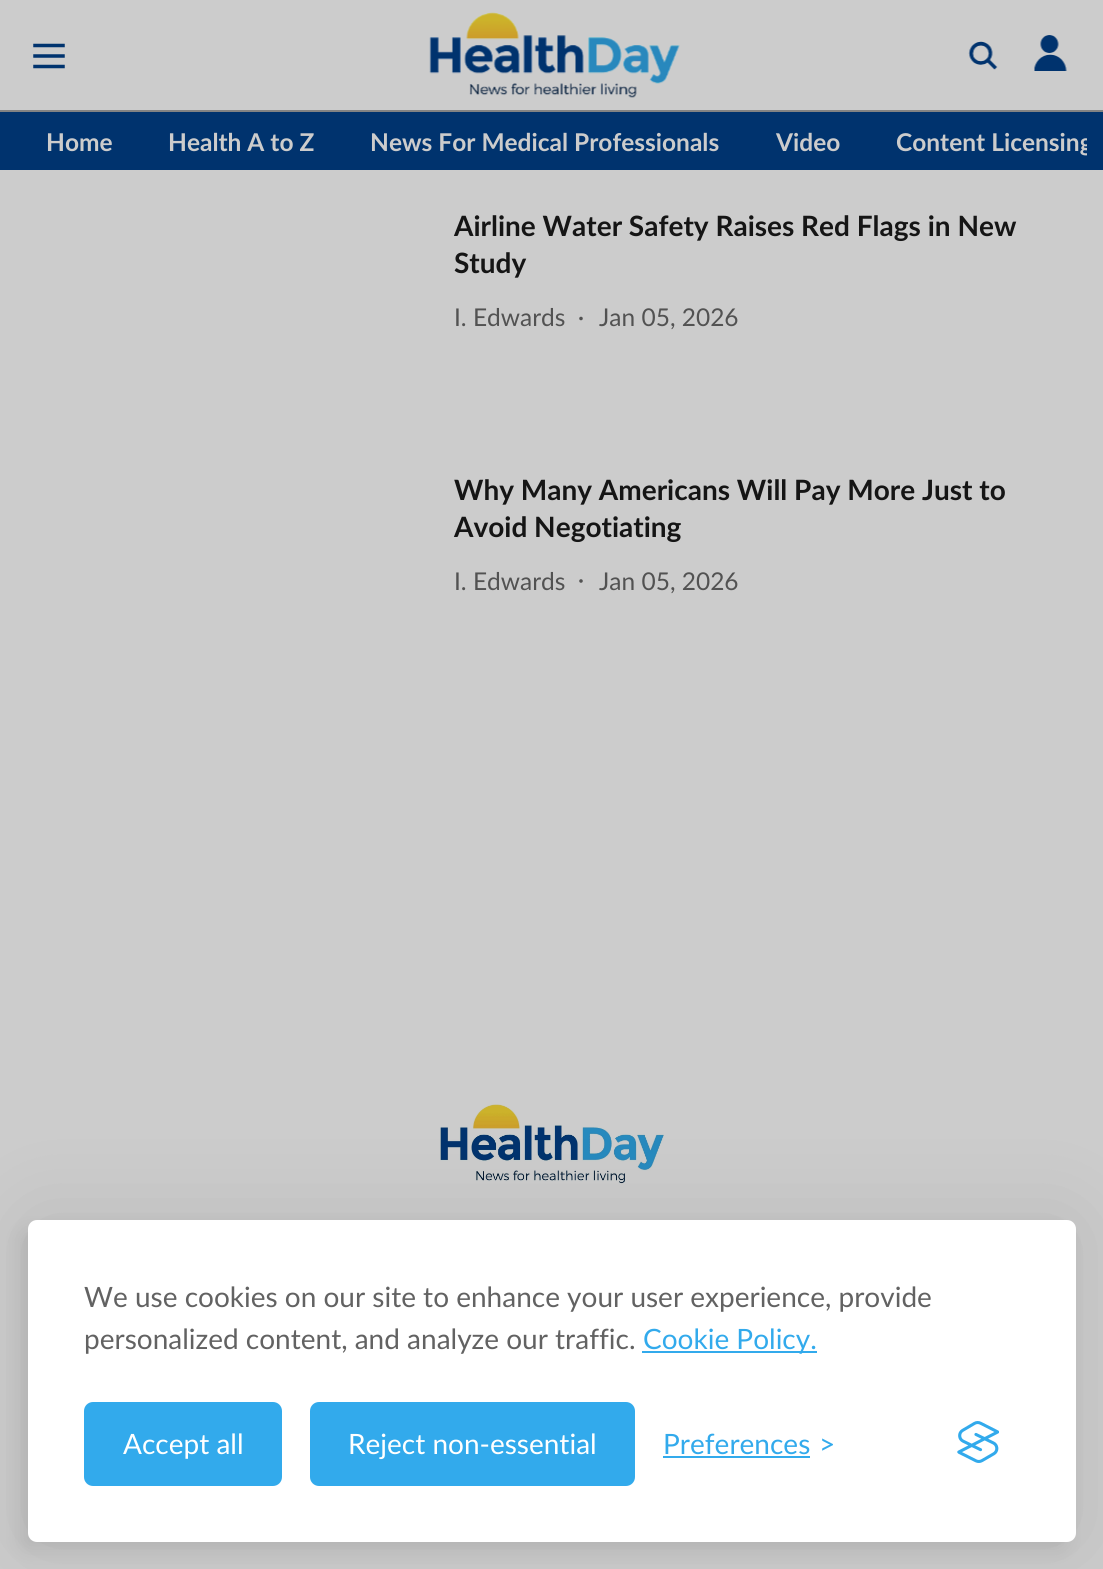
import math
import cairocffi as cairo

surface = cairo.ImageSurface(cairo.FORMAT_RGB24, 1103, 1569)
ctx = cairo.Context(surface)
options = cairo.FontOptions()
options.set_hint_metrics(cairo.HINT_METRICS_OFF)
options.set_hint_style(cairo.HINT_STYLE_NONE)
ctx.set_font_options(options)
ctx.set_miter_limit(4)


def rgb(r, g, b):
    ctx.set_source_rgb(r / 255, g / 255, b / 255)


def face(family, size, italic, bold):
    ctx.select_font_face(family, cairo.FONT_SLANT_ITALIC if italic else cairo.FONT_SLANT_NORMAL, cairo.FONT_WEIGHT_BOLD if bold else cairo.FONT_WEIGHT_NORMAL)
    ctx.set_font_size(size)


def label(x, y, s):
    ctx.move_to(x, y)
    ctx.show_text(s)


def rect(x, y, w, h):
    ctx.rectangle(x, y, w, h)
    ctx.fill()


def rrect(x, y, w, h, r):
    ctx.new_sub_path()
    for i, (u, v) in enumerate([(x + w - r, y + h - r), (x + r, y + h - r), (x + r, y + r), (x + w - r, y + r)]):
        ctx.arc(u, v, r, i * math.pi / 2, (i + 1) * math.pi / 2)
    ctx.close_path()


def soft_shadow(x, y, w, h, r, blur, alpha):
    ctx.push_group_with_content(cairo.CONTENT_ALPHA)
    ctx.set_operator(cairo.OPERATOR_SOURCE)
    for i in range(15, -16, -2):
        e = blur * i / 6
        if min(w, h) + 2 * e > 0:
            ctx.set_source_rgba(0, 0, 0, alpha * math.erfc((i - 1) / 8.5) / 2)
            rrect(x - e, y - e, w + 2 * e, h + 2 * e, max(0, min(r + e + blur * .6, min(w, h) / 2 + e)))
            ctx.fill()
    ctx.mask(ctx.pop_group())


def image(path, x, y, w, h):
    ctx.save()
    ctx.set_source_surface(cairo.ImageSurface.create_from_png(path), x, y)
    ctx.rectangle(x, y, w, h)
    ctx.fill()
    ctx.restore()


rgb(204, 204, 204)
ctx.paint()
rgb(131, 131, 131)
rect(0, 110, 1103, 2)
image('image0.png', 33, 43, 32, 26)
image('image1.png', 429, 12, 251, 86)
image('image2.png', 968, 41, 30, 29)
image('image3.png', 1034, 35, 33, 36)
rgb(0, 51, 110)
rect(0, 112, 1103, 58)
face('Lato', 24.5, 0, 1)
rgb(204, 204, 204)
label(46, 151, 'Home')
label(168, 151, 'Health A to Z')
label(370, 151, 'News For Medical Professionals')
label(776, 151, 'Video')
ctx.save()
ctx.rectangle(18, 112, 1069, 58)
ctx.clip()
label(896, 151, 'Content Licensing')
ctx.restore()
face('Lato', 28, 0, 1)
rgb(21, 21, 21)
label(454, 236, 'Airline Water Safety Raises Red Flags in New')
label(454, 273, 'Study')
face('Lato', 24.5, 0, 0)
rgb(82, 82, 82)
label(454, 326, 'I. Edwards')
ctx.new_path()
ctx.arc(581, 318.5, 1.8, 0, 2 * math.pi)
ctx.fill()
label(599, 326, 'Jan 05, 2026')
face('Lato', 28, 0, 1)
rgb(21, 21, 21)
label(454, 500, 'Why Many Americans Will Pay More Just to')
label(454, 537, 'Avoid Negotiating')
face('Lato', 24.5, 0, 0)
rgb(82, 82, 82)
label(454, 590, 'I. Edwards')
ctx.new_path()
ctx.arc(581, 581, 1.8, 0, 2 * math.pi)
ctx.fill()
label(599, 590, 'Jan 05, 2026')
image('image4.png', 440, 1104, 224, 80)
rgb(0, 0, 0)
soft_shadow(28, 1220, 1048, 322, 9, 44, 0.1)
soft_shadow(19, 1229, 1049, 322, 9, 9, 0.07)
rgb(255, 255, 255)
rrect(28, 1220, 1048, 322, 9)
ctx.fill()
face('Lato', 28, 0, 0)
rgb(98, 98, 98)
label(84, 1307, 'We use cookies on our site to enhance your user experience, provide')
label(84, 1349, 'personalized content, and analyze our traffic.')
rgb(50, 170, 236)
rect(642, 1351, 175, 2)
label(643, 1349, 'Cookie Policy.')
rrect(86, 1404, 194, 80, 7)
ctx.fill_preserve()
ctx.set_line_width(4)
ctx.stroke()
rgb(255, 255, 255)
label(123, 1454, 'Accept all')
rgb(50, 170, 236)
rrect(312, 1404, 321, 80, 7)
ctx.fill_preserve()
ctx.stroke()
rgb(255, 255, 255)
label(348, 1454, 'Reject non-essential')
rgb(50, 170, 236)
label(663, 1454, 'Preferences')
rect(663, 1456, 147, 2)
label(819, 1454, '>')
image('image5.png', 957, 1421, 42, 42)
surface.write_to_png('render.png')
